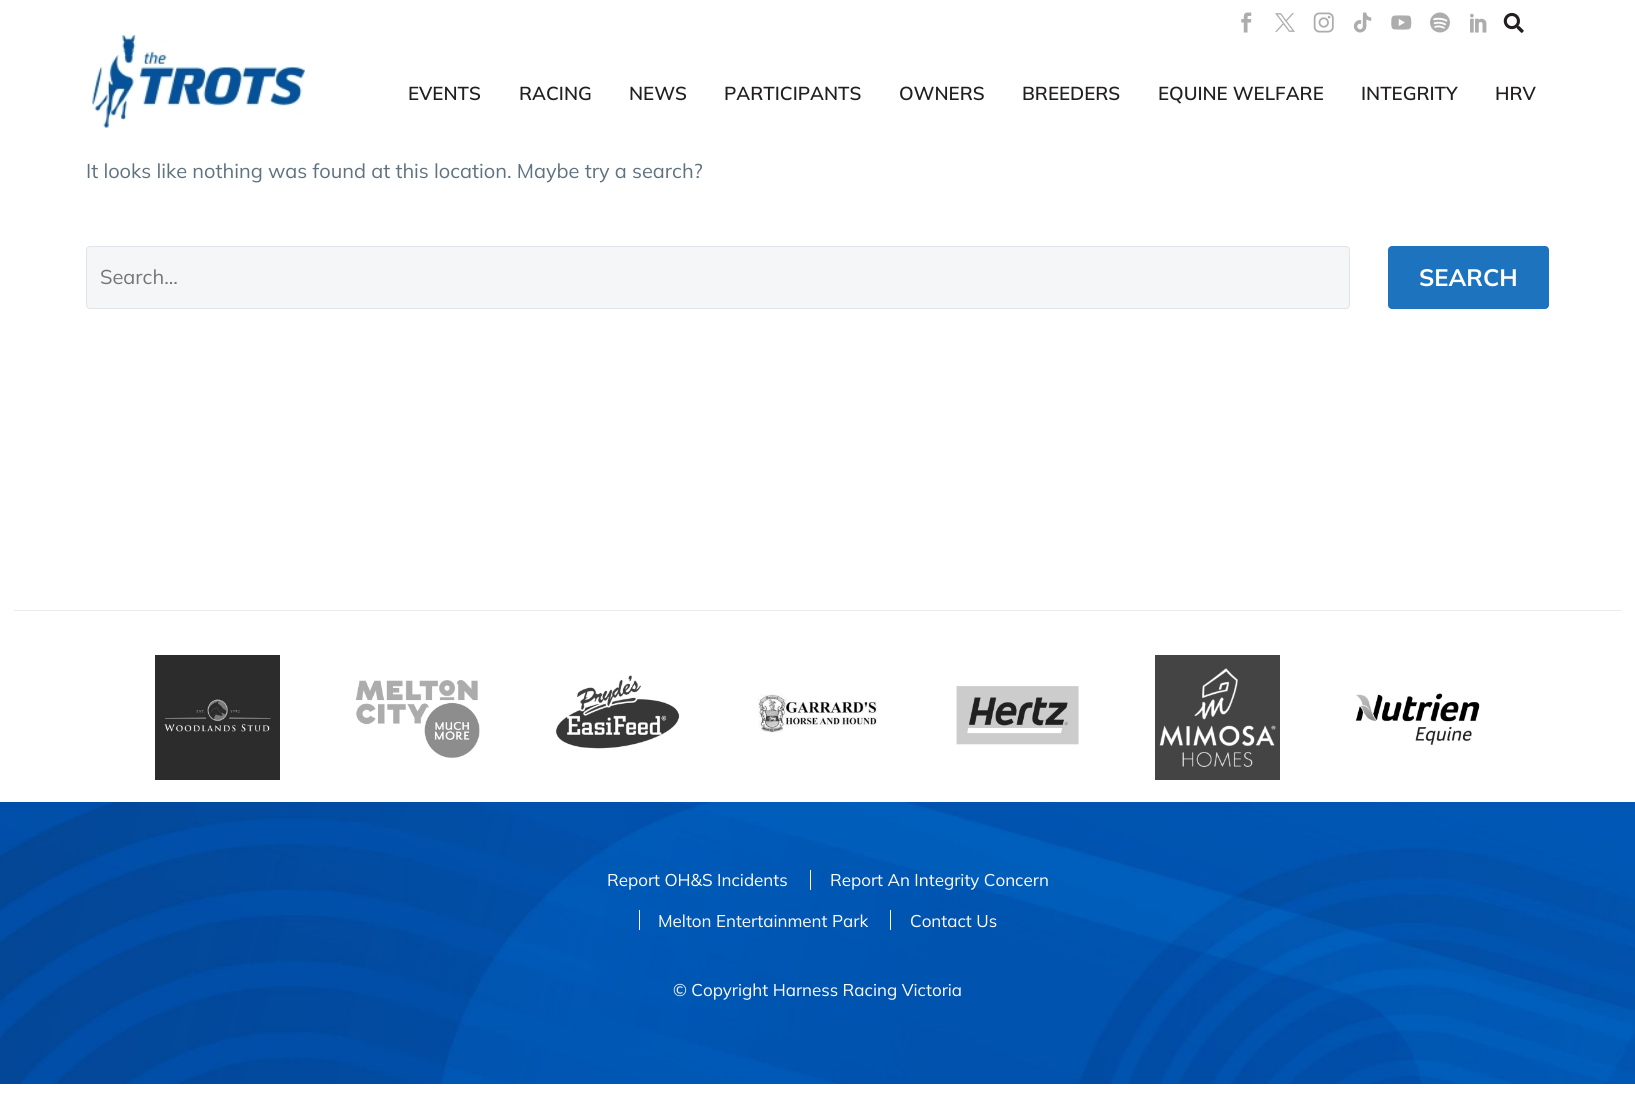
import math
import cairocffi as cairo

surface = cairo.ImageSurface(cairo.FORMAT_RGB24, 1635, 1103)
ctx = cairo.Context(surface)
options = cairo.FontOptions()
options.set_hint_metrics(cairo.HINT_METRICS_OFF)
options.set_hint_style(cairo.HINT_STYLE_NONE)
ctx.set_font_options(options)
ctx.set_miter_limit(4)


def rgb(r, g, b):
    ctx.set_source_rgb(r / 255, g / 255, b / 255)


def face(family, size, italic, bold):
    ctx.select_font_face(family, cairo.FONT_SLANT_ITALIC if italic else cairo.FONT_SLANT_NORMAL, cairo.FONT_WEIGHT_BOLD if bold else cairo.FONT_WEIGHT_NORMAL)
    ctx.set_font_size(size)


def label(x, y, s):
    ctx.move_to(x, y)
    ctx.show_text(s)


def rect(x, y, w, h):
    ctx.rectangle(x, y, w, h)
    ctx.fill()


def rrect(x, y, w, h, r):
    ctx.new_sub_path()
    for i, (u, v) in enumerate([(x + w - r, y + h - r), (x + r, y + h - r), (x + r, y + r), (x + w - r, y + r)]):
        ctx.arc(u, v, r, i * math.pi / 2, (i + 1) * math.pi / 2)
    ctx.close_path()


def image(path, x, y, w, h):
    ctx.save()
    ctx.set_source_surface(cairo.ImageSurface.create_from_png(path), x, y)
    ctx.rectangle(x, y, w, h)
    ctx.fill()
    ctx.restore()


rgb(255, 255, 255)
ctx.paint()
image('image0.png', 1241, 12, 11, 21)
image('image1.png', 1275, 13, 20, 19)
image('image2.png', 1313, 12, 21, 21)
image('image3.png', 1353, 12, 19, 21)
image('image4.png', 1391, 15, 21, 15)
image('image5.png', 1430, 12, 20, 21)
image('image6.png', 1470, 13, 17, 20)
image('image7.png', 1503, 12, 21, 21)
image('image8.png', 92, 35, 213, 93)
face('Mulish SemiBold', 18.75, 0, 0)
rgb(35, 31, 32)
label(408, 100, 'EVENTS')
label(519, 100, 'RACING')
label(629, 100, 'NEWS')
label(724, 100, 'PARTICIPANTS')
label(899, 100, 'OWNERS')
label(1022, 100, 'BREEDERS')
label(1158, 100, 'EQUINE WELFARE')
label(1361, 100, 'INTEGRITY')
label(1495, 100, 'HRV')
face('Mulish', 20, 0, 0)
rgb(95, 114, 127)
label(86, 178, 'It looks like nothing was found at this location. Maybe try a search?')
rgb(244, 246, 247)
rrect(86.5, 246.5, 1263, 62, 3.5)
ctx.fill_preserve()
rgb(223, 229, 232)
ctx.set_line_width(1)
ctx.stroke()
rgb(117, 117, 117)
label(100, 284, 'Search...')
rgb(30, 115, 190)
rrect(1388, 246, 161, 63, 4)
ctx.fill()
face('Mulish', 23.75, 0, 1)
rgb(255, 255, 255)
label(1419, 286, 'SEARCH')
rgb(235, 235, 235)
rect(14, 610, 1607, 1)
image('image9.png', 155, 655, 125, 125)
image('image10.png', 355, 680, 125, 78)
image('image11.png', 555, 675, 125, 74)
image('image12.png', 758, 694, 119, 39)
image('image13.png', 956, 686, 123, 59)
image('image14.png', 1155, 655, 125, 125)
image('image15.png', 1355, 693, 125, 52)
image('image16.png', 0, 802, 1635, 282)
face('Mulish', 17, 0, 0)
rgb(255, 255, 255)
label(607, 886, 'Report OH&S Incidents')
rect(810, 870, 1, 20)
label(830, 886, 'Report An Integrity Concern')
rect(639, 910, 1, 20)
label(658, 927, 'Melton Entertainment Park')
rect(890, 910, 1, 20)
label(910, 927, 'Contact Us')
label(673, 996, '© Copyright Harness Racing Victoria')
surface.write_to_png('render.png')
